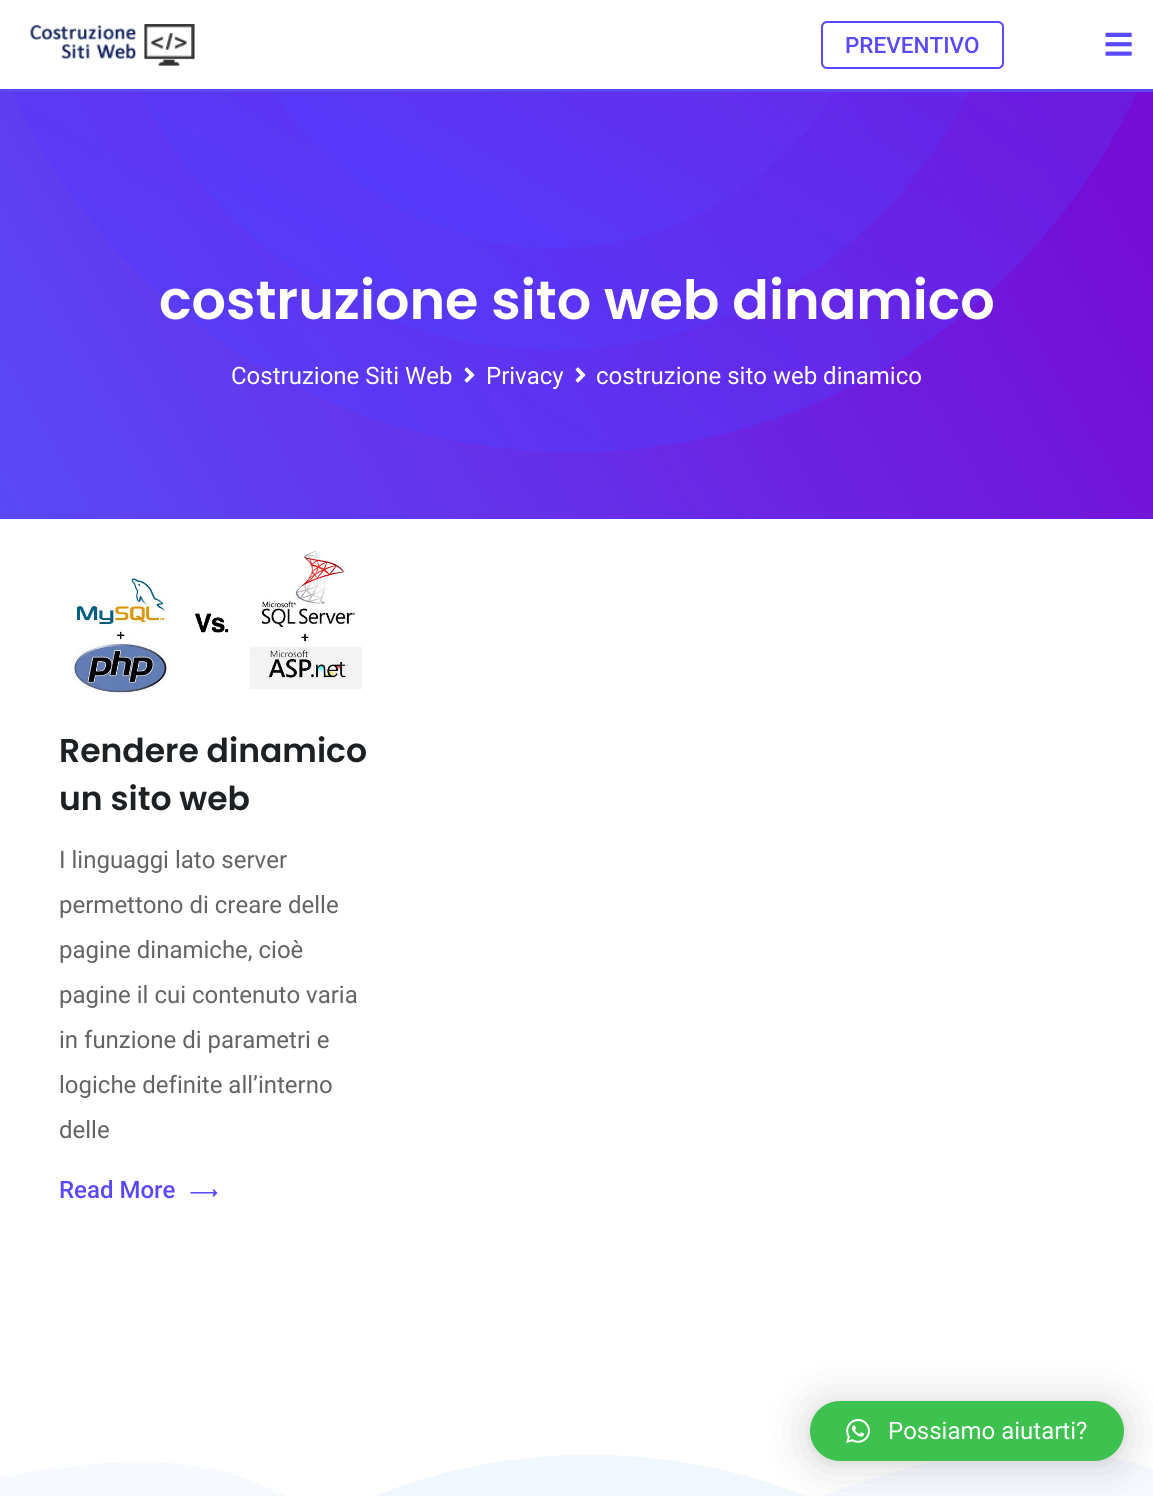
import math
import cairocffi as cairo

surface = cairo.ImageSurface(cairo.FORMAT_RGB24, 1153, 1496)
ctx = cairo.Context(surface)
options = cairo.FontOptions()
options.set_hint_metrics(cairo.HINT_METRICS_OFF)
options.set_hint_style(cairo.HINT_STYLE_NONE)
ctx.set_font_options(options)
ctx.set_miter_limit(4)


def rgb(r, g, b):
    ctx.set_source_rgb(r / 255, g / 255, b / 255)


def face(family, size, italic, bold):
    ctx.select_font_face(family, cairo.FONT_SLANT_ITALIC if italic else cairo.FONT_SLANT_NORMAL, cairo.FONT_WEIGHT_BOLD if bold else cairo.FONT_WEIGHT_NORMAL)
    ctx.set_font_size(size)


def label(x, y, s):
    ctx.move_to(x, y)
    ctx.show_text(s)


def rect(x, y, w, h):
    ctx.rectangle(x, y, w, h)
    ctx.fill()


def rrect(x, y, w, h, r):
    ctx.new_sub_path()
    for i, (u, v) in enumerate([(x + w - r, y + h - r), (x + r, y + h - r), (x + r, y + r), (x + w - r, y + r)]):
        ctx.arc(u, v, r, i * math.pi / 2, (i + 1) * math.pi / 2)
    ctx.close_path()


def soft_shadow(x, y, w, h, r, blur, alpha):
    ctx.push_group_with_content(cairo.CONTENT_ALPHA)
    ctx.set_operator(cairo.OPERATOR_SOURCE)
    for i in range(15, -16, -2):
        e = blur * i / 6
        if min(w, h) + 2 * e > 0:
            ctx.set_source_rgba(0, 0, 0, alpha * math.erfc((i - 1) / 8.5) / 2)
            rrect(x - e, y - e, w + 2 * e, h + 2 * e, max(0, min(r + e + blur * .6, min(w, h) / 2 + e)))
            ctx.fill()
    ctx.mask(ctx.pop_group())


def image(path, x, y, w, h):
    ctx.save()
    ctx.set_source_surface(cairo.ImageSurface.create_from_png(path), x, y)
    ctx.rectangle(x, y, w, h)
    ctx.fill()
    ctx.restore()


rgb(255, 255, 255)
ctx.paint()
gradient = cairo.LinearGradient(52, 608, 1102, 2.1)
gradient.add_color_stop_rgba(0, 0.353, 0.286, 0.973, 1)
gradient.add_color_stop_rgba(0.93, 0.459, 0.055, 0.835, 1)
ctx.set_source(gradient)
rect(0, 92, 1153, 427)
gradient = cairo.LinearGradient(-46, 285, 574, -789)
gradient.add_color_stop_rgba(0, 0.322, 0.247, 1, 0.6)
gradient.add_color_stop_rgba(1, 0.459, 0.055, 0.835, 0.6)
ctx.set_source(gradient)
ctx.new_path()
ctx.move_to(574, -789)
ctx.curve_to(916, -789, 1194, -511, 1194, -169)
ctx.curve_to(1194, 174, 916, 452, 574, 452)
ctx.curve_to(231, 452, -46, 174, -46, -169)
ctx.curve_to(-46, -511, 231, -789, 574, -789)
ctx.close_path()
ctx.fill()
gradient = cairo.LinearGradient(93, 226, 554, -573)
gradient.add_color_stop_rgba(0, 0.322, 0.247, 1, 0.6)
gradient.add_color_stop_rgba(1, 0.427, 0.102, 0.875, 0.6)
ctx.set_source(gradient)
ctx.new_path()
ctx.move_to(554, -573)
ctx.curve_to(809, -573, 1016, -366, 1016, -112)
ctx.curve_to(1016, 143, 809, 350, 554, 350)
ctx.curve_to(300, 350, 93, 143, 93, -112)
ctx.curve_to(93, -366, 300, -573, 554, -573)
ctx.close_path()
ctx.fill()
gradient = cairo.LinearGradient(224, 159, 554, -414)
gradient.add_color_stop_rgba(0.13, 0.322, 0.247, 1, 0.4)
gradient.add_color_stop_rgba(1, 0.51, 0.129, 0.867, 0.4)
ctx.set_source(gradient)
ctx.new_path()
ctx.move_to(554, -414)
ctx.curve_to(737, -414, 885, -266, 885, -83)
ctx.curve_to(885, 99, 737, 248, 554, 248)
ctx.curve_to(372, 248, 224, 99, 224, -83)
ctx.curve_to(224, -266, 372, -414, 554, -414)
ctx.close_path()
ctx.fill()
rgb(255, 255, 255)
rect(0, 0, 1153, 89)
rgb(90, 73, 248)
rect(0, 89, 1153, 3)
image('image0.png', 30, 24, 165, 42)
rrect(822, 22, 181, 46, 5)
ctx.stroke()
face('Roboto Medium', 22.5, 0, 0)
label(845, 53, 'PREVENTIVO')
image('image1.png', 1105, 32, 27, 24)
face('Poppins SemiBold', 54, 0, 0)
rgb(255, 255, 255)
label(159, 319, 'costruzione sito web dinamico')
face('Roboto', 24, 0, 0)
label(231, 384, 'Costruzione Siti Web')
image('image2.png', 464, 367, 11, 16)
label(486, 384, 'Privacy')
image('image3.png', 575, 367, 11, 16)
label(596, 384, 'costruzione sito web dinamico')
image('image4.png', 71, 551, 291, 146)
face('Poppins SemiBold', 33, 0, 0)
rgb(29, 33, 36)
label(59, 762, 'Rendere dinamico')
label(59, 810, 'un sito web')
face('Roboto', 24, 0, 0)
rgb(100, 100, 100)
label(59, 868, 'I linguaggi lato server')
label(59, 913, 'permettono di creare delle')
label(59, 958, 'pagine dinamiche, cioè')
label(59, 1003, 'pagine il cui contenuto varia')
label(59, 1048, 'in funzione di parametri e')
label(59, 1093, 'logiche definite all’interno')
label(59, 1138, 'delle')
face('Roboto Medium', 24, 0, 0)
rgb(90, 73, 248)
label(59, 1198, 'Read More')
ctx.new_path()
ctx.move_to(213.5, 1189)
ctx.line_to(217.5, 1193)
ctx.line_to(213.5, 1197)
ctx.line_to(212.5, 1195.5)
ctx.line_to(214, 1193.5)
ctx.line_to(190.5, 1193.5)
ctx.line_to(190.5, 1192)
ctx.line_to(214, 1192)
ctx.line_to(212.5, 1190)
ctx.close_path()
ctx.fill()
image('image5.png', 0, 1454, 1153, 42)
rgb(0, 0, 0)
soft_shadow(810, 1404, 314, 60, 30, 24, 0.16)
soft_shadow(810, 1403, 314, 60, 30, 4.5, 0.06)
rgb(62, 194, 79)
rrect(810, 1401, 314, 60, 30)
ctx.fill()
image('image6.png', 846, 1419, 24, 24)
face('Roboto', 24, 0, 0)
rgb(255, 255, 255)
label(888, 1439, 'Possiamo aiutarti?')
surface.write_to_png('render.png')
